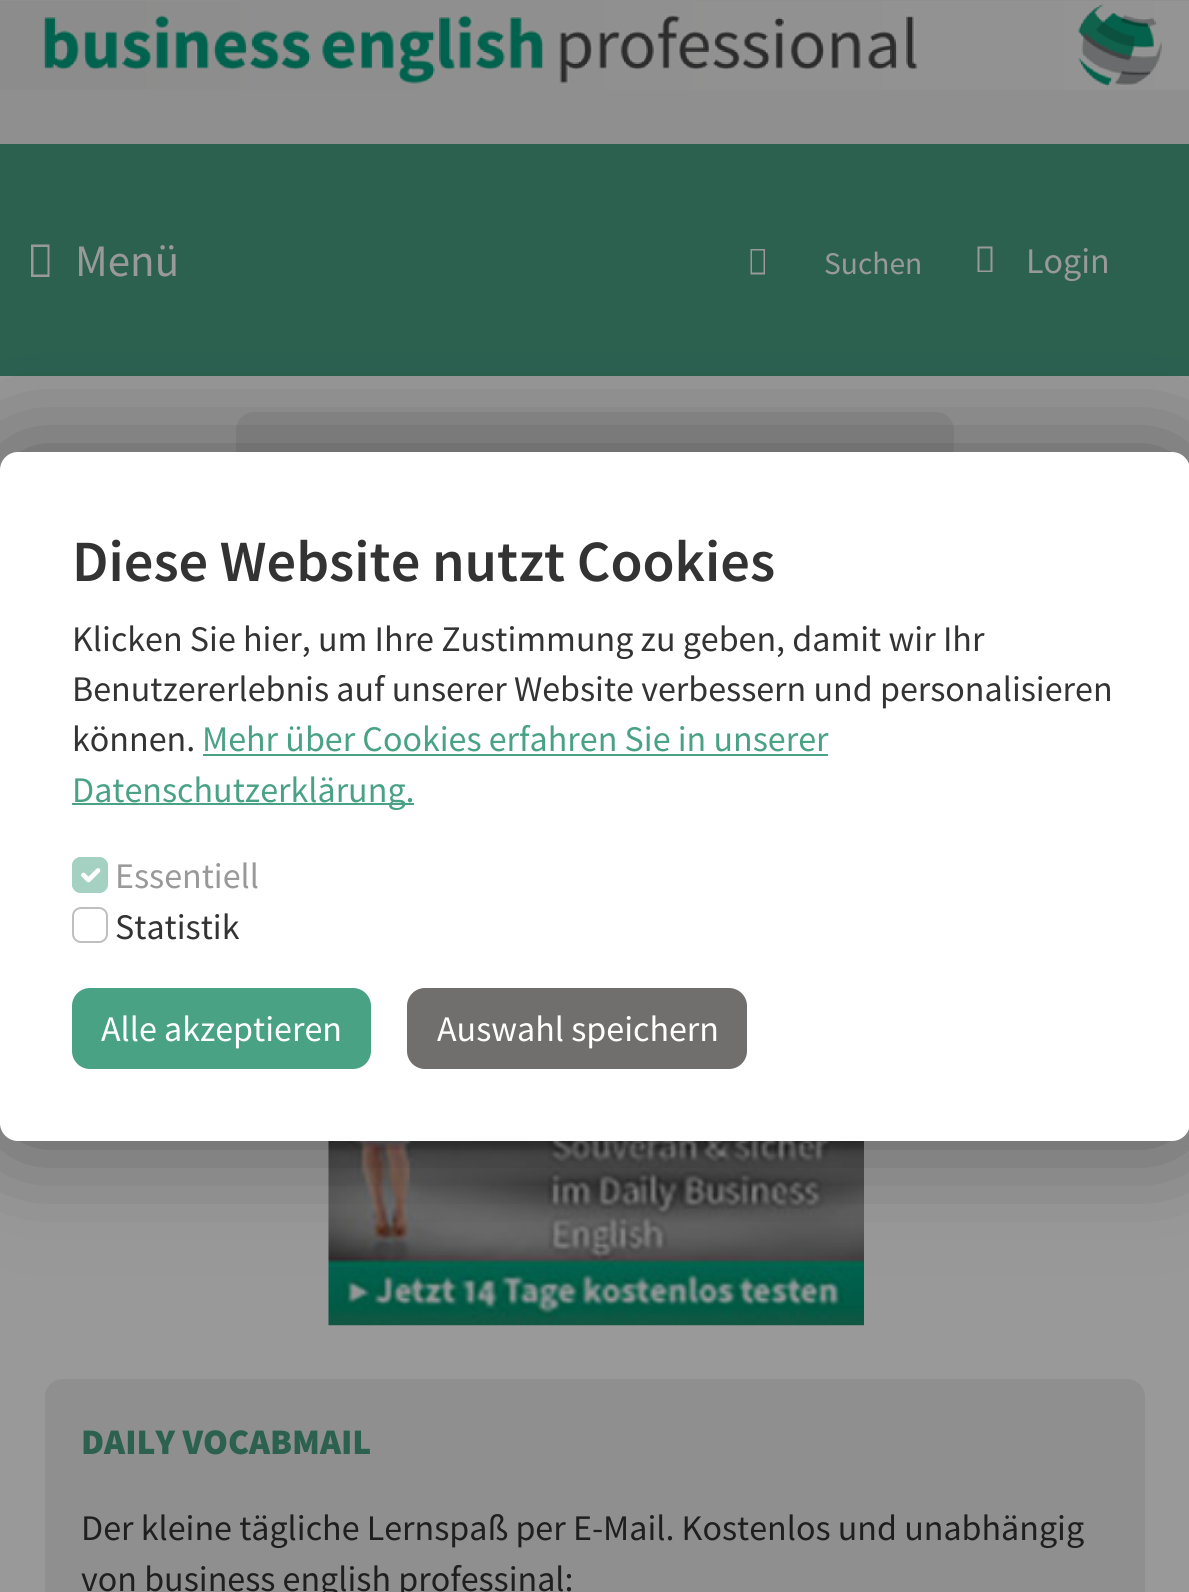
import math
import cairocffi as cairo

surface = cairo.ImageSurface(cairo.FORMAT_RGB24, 1189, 1592)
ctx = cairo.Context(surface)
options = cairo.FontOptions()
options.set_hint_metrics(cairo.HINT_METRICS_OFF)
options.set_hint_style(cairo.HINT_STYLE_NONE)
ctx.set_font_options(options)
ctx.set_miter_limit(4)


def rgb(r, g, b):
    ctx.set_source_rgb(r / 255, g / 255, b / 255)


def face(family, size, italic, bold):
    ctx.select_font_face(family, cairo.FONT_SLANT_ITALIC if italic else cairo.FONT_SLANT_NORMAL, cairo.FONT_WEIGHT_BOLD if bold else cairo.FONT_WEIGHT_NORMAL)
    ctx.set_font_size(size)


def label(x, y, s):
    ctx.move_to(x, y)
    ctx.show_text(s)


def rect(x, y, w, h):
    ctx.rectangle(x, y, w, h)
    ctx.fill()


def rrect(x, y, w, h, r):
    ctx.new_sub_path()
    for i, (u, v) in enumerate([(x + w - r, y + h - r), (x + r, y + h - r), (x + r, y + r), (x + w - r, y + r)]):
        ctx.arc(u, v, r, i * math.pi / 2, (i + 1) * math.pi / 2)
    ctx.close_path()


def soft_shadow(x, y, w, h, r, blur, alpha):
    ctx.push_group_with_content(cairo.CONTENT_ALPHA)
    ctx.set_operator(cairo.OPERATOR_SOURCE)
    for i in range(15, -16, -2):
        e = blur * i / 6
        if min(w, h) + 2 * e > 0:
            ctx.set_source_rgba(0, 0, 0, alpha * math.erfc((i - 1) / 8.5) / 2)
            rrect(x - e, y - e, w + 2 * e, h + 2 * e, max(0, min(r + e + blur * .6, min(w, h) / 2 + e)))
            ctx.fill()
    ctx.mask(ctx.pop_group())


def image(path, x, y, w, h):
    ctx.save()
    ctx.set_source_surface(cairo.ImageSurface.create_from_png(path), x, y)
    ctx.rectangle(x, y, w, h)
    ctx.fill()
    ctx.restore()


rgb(143, 143, 143)
ctx.paint()
image('image0.png', 0, 1, 1189, 89)
rgb(44, 97, 80)
rect(0, 144, 1189, 232)
rgb(153, 153, 153)
ctx.new_path()
ctx.move_to(31, 277)
ctx.line_to(31, 244.5)
ctx.line_to(49.5, 244.5)
ctx.line_to(49.5, 277)
ctx.close_path()
ctx.move_to(33.5, 274.5)
ctx.line_to(47.5, 274.5)
ctx.line_to(47.5, 247)
ctx.line_to(33.5, 247)
ctx.close_path()
ctx.fill()
face('Source Sans Pro', 45, 0, 0)
label(75, 276, 'Menü')
ctx.new_path()
ctx.move_to(750.5, 274.5)
ctx.line_to(750.5, 249)
ctx.line_to(765, 249)
ctx.line_to(765, 274.5)
ctx.close_path()
ctx.move_to(752, 272.5)
ctx.line_to(763.5, 272.5)
ctx.line_to(763.5, 250.5)
ctx.line_to(752, 250.5)
ctx.close_path()
ctx.fill()
face('Source Sans Pro', 31.5, 0, 0)
label(824, 274, 'Suchen')
ctx.new_path()
ctx.move_to(977.5, 272)
ctx.line_to(977.5, 246.5)
ctx.line_to(992.5, 246.5)
ctx.line_to(992.5, 272)
ctx.close_path()
ctx.move_to(979.5, 270.5)
ctx.line_to(990.5, 270.5)
ctx.line_to(990.5, 248.5)
ctx.line_to(979.5, 248.5)
ctx.close_path()
ctx.fill()
face('Source Sans Pro', 36, 0, 0)
label(1026, 273, 'Login')
rect(0, 376, 1189, 1216)
rgb(143, 143, 143)
rrect(236, 412, 718, 209, 18)
ctx.fill()
image('image1.png', 328, 1141, 536, 185)
rgb(0, 0, 0)
soft_shadow(0, 452, 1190, 689, 18, 54, 0.4)
rgb(255, 255, 255)
rrect(0, 452, 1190, 689, 18)
ctx.fill()
face('Source Sans Pro SemiBold', 58.4, 0, 0)
rgb(51, 51, 51)
label(72, 581, 'Diese Website nutzt Cookies')
face('Source Sans Pro', 36, 0, 0)
label(72, 651, 'Klicken Sie hier, um Ihre Zustimmung zu geben, damit wir Ihr')
label(72, 701, 'Benutzererlebnis auf unserer Website verbessern und personalisieren')
label(72, 751, 'können.')
rgb(74, 162, 133)
label(202, 751, 'Mehr über Cookies erfahren Sie in unserer')
rect(203, 754, 625, 2)
rect(72, 803, 342, 2)
label(72, 802, 'Datenschutzerklärung.')
rgb(165, 209, 194)
rrect(72, 857, 36, 36, 9)
ctx.fill()
ctx.new_path()
ctx.move_to(83.5, 875)
ctx.line_to(88.5, 880)
ctx.line_to(98, 870.5)
rgb(255, 255, 255)
ctx.set_line_width(4.7)
ctx.set_line_cap(cairo.LINE_CAP_ROUND)
ctx.set_line_join(cairo.LINE_JOIN_ROUND)
ctx.stroke()
rrect(73, 858, 34, 34, 8)
rgb(165, 209, 194)
ctx.set_line_width(2)
ctx.set_line_cap(cairo.LINE_CAP_BUTT)
ctx.set_line_join(cairo.LINE_JOIN_MITER)
ctx.stroke()
rgb(153, 153, 153)
label(115, 888, 'Essentiell')
rrect(73, 908, 34, 34, 8)
rgb(191, 191, 191)
ctx.stroke()
rgb(51, 51, 51)
label(115, 939, 'Statistik')
rgb(74, 162, 133)
rrect(73, 989, 297, 79, 17)
ctx.fill_preserve()
ctx.stroke()
rgb(255, 255, 255)
label(101, 1041, 'Alle akzeptieren')
rgb(112, 111, 110)
rrect(408, 989, 338, 79, 17)
ctx.fill_preserve()
ctx.stroke()
rgb(255, 255, 255)
label(437, 1041, 'Auswahl speichern')
rgb(143, 143, 143)
rrect(45, 1379, 1100, 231, 18)
ctx.fill()
face('Source Sans Pro Black', 36, 0, 0)
rgb(44, 97, 80)
label(81, 1454, 'DAILY VOCABMAIL')
face('Source Sans Pro', 36, 0, 0)
rgb(31, 31, 31)
label(81, 1540, 'Der kleine tägliche Lernspaß per E-Mail. Kostenlos und unabhängig')
label(81, 1591, 'von business english professinal:')
surface.write_to_png('render.png')
